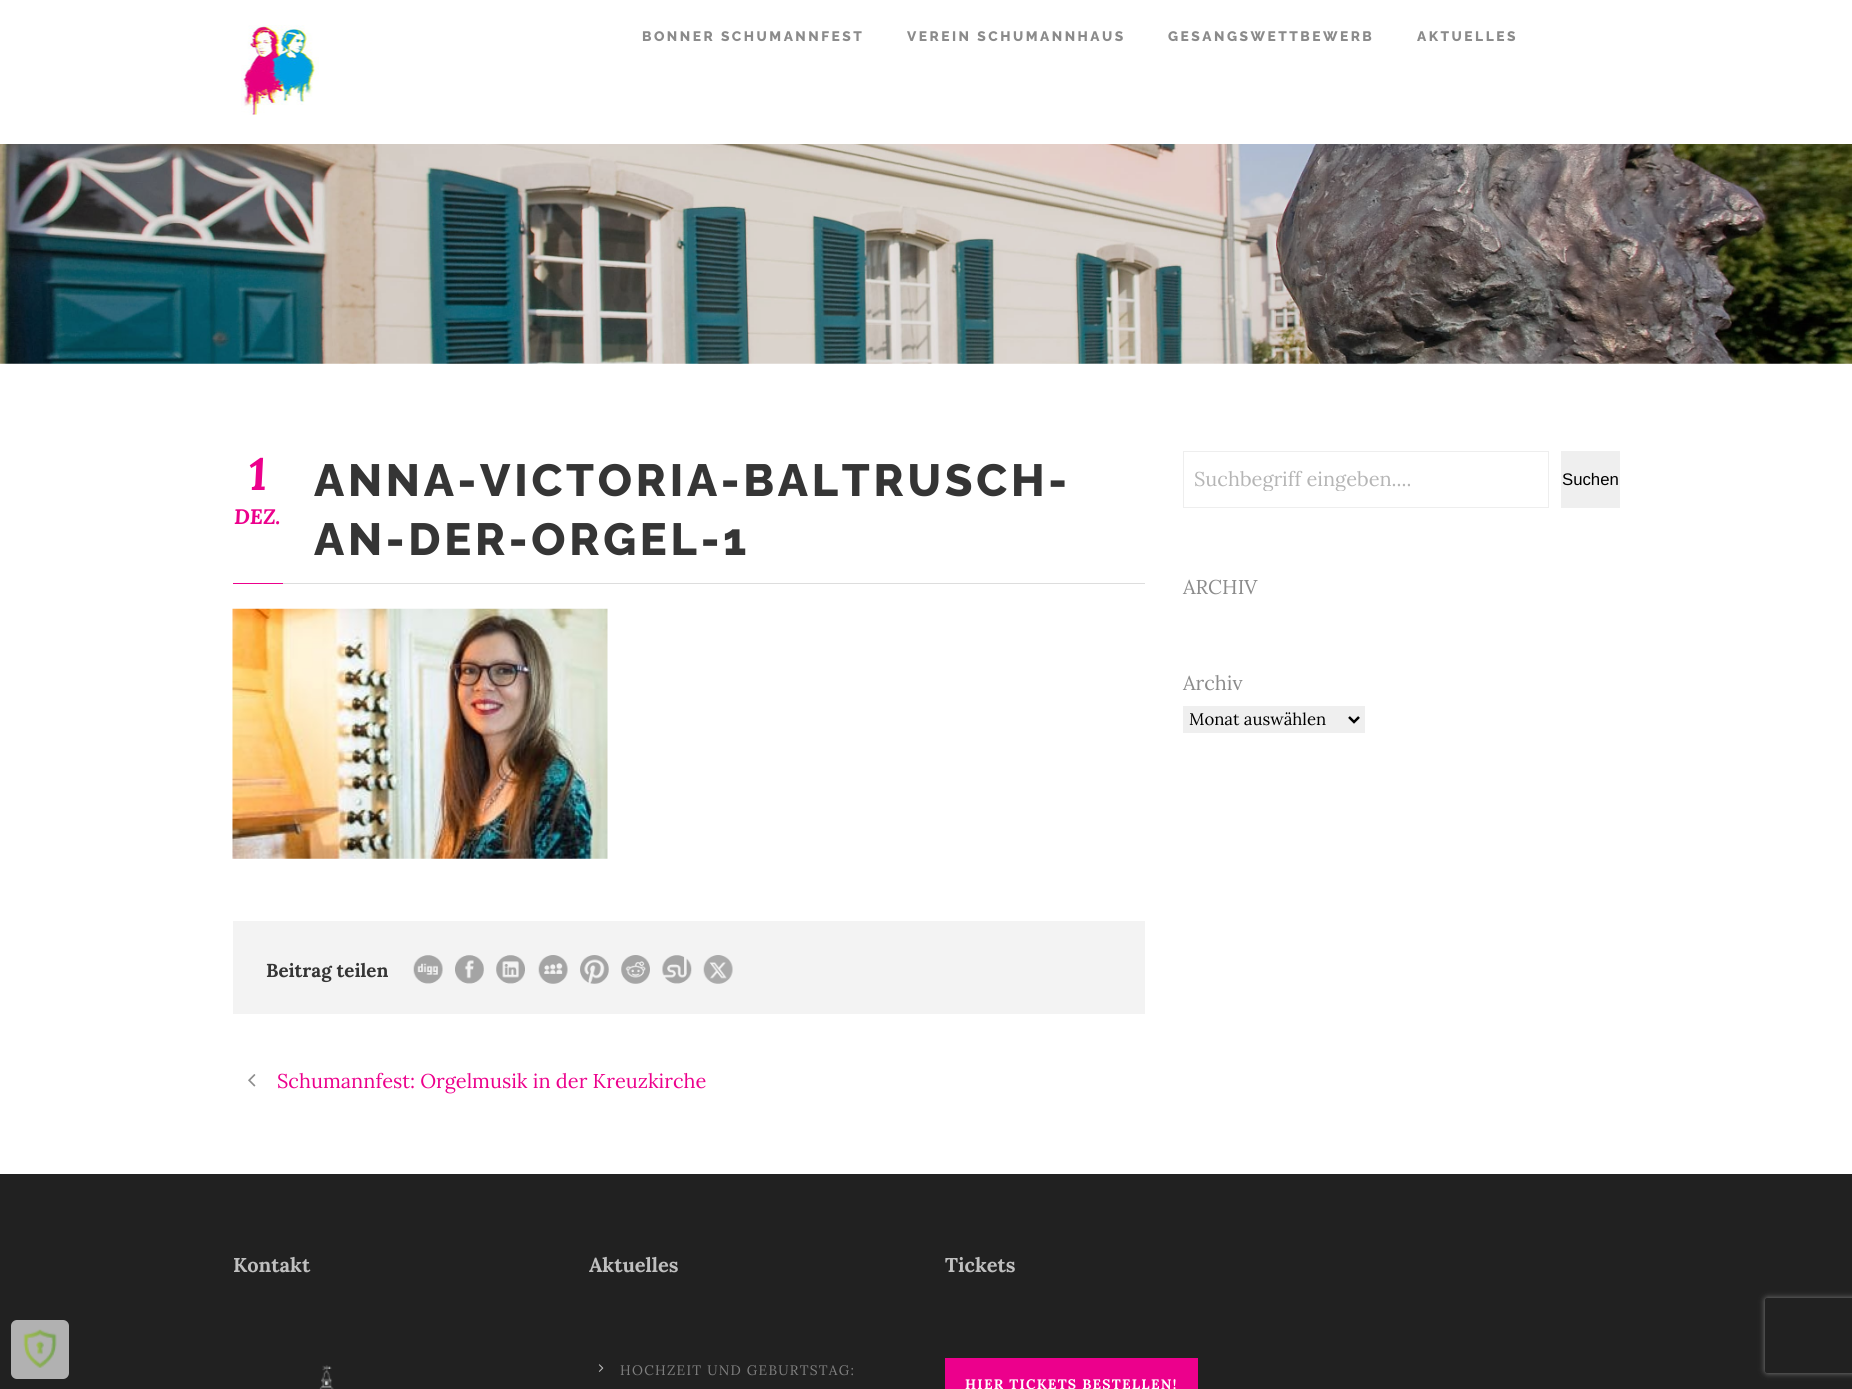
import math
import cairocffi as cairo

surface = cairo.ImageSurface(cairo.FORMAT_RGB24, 1852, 1389)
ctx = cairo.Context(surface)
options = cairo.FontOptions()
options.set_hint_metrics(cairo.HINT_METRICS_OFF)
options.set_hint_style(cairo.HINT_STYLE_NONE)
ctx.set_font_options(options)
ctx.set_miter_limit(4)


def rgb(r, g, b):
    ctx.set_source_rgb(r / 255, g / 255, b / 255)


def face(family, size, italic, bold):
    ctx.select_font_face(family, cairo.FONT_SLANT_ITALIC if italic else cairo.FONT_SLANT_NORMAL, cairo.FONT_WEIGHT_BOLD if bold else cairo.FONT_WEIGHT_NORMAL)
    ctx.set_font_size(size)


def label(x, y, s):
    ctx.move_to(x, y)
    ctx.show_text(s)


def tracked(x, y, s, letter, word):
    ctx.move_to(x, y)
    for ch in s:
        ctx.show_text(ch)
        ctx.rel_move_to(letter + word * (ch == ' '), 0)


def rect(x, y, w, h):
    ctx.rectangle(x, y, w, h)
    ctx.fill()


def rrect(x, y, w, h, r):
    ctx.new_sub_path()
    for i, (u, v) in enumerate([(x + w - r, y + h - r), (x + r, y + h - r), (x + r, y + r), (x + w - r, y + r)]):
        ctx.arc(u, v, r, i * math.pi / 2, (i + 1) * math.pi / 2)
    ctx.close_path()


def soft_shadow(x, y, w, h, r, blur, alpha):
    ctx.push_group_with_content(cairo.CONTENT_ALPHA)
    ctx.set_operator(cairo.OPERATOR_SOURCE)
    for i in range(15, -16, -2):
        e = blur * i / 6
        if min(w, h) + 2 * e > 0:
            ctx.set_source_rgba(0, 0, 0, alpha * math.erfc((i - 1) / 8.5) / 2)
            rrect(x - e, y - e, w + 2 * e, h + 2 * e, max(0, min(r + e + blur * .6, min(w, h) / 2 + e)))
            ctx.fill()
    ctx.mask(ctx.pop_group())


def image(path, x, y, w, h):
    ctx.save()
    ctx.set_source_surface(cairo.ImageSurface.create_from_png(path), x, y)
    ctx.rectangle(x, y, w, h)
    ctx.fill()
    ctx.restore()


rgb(255, 255, 255)
ctx.paint()
rgb(33, 33, 33)
rect(0, 1174, 1852, 215)
ctx.set_source_rgba(0.702, 0.702, 0.702, 0.99)
rrect(11, 1320, 58, 59, 6)
ctx.fill()
image('image0.png', 23, 1329, 34, 39)
image('image1.png', 241, 25, 78, 90)
face('Raleway ExtraBold', 13.75, 0, 0)
rgb(139, 139, 139)
tracked(642, 41, 'BONNER SCHUMANNFEST', 2.5, 0)
tracked(907, 41, 'VEREIN SCHUMANNHAUS', 2.5, 0)
tracked(1168, 41, 'GESANGSWETTBEWERB', 2.5, 0)
tracked(1417, 41, 'AKTUELLES', 2.5, 0)
image('image2.png', 0, 144, 1852, 220)
rgb(221, 221, 221)
rect(283, 583, 862, 1)
face('Lora', 45, 1, 1)
rgb(236, 0, 140)
label(249, 490, '1')
face('Lora', 21, 1, 1)
label(234, 524, 'DEZ.')
face('Raleway ExtraBold', 45, 0, 0)
rgb(53, 53, 53)
tracked(314, 496, 'ANNA-VICTORIA-BALTRUSCH-', 3.75, 0)
tracked(314, 555, 'AN-DER-ORGEL-1', 3.75, 0)
rgb(236, 0, 140)
rect(233, 583, 50, 1)
image('image3.png', 232, 608, 376, 251)
rgb(243, 243, 243)
rect(233, 921, 912, 93)
face('Lora', 18.75, 0, 1)
rgb(53, 53, 53)
label(266, 977, 'Beitrag teilen')
image('image4.png', 413, 955, 30, 29)
image('image5.png', 455, 955, 29, 29)
image('image6.png', 496, 955, 29, 29)
image('image7.png', 538, 955, 30, 29)
image('image8.png', 580, 955, 29, 29)
image('image9.png', 621, 955, 29, 29)
image('image10.png', 662, 955, 30, 29)
image('image11.png', 703, 955, 30, 29)
image('image12.png', 248, 1074, 8, 13)
face('Lora', 20, 0, 0)
rgb(236, 0, 140)
label(277, 1088, 'Schumannfest: Orgelmusik in der Kreuzkirche')
ctx.rectangle(1183.5, 451.5, 365, 56)
rgb(238, 238, 238)
ctx.set_line_width(1)
ctx.stroke()
ctx.save()
ctx.rectangle(1194, 466, 325, 25)
ctx.clip()
rgb(181, 181, 181)
label(1194, 486, 'Suchbegriff eingeben....')
ctx.restore()
rgb(239, 239, 239)
rect(1561, 451, 59, 57)
face('Liberation Sans', 16.75, 0, 0)
rgb(0, 0, 0)
label(1562, 485, 'Suchen')
face('Lora', 20, 0, 0)
rgb(139, 139, 139)
label(1183, 594, 'ARCHIV')
label(1183, 690, 'Archiv')
rgb(239, 239, 239)
rect(1183, 706, 182, 27)
ctx.new_path()
ctx.move_to(1349, 717)
ctx.line_to(1354, 722)
ctx.line_to(1359, 717)
rgb(0, 0, 0)
ctx.set_line_width(2.5)
ctx.stroke()
face('Lora', 16.75, 0, 0)
label(1189, 725, 'Monat auswählen')
face('Lora', 20, 0, 1)
rgb(191, 191, 191)
label(233, 1272, 'Kontakt')
image('image13.png', 319, 1365, 15, 24)
label(589, 1272, 'Aktuelles')
image('image14.png', 598, 1364, 6, 8)
face('Lora', 13.75, 0, 0)
rgb(127, 127, 127)
tracked(620, 1375, 'HOCHZEIT UND GEBURTSTAG:', 1.25, 0)
face('Lora', 20, 0, 1)
rgb(191, 191, 191)
label(945, 1272, 'Tickets')
rgb(236, 0, 140)
rect(945, 1358, 253, 31)
face('Lora', 13.75, 0, 1)
rgb(255, 255, 255)
tracked(965, 1389, 'HIER TICKETS BESTELLEN!', 1.25, 0)
ctx.save()
ctx.set_fill_rule(cairo.FILL_RULE_EVEN_ODD)
ctx.new_path()
ctx.move_to(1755, 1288)
ctx.line_to(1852, 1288)
ctx.line_to(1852, 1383)
ctx.line_to(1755, 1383)
ctx.close_path()
ctx.move_to(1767.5, 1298)
ctx.line_to(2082.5, 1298)
ctx.curve_to(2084, 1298, 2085, 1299, 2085, 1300.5)
ctx.line_to(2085, 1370.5)
ctx.curve_to(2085, 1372, 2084, 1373, 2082.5, 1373)
ctx.line_to(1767.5, 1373)
ctx.curve_to(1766, 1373, 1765, 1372, 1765, 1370.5)
ctx.line_to(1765, 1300.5)
ctx.curve_to(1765, 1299, 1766, 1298, 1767.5, 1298)
ctx.close_path()
ctx.clip()
rgb(128, 128, 128)
soft_shadow(1765, 1298, 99, 75, 2.5, 3, 1)
ctx.restore()
surface.write_to_png('render.png')
